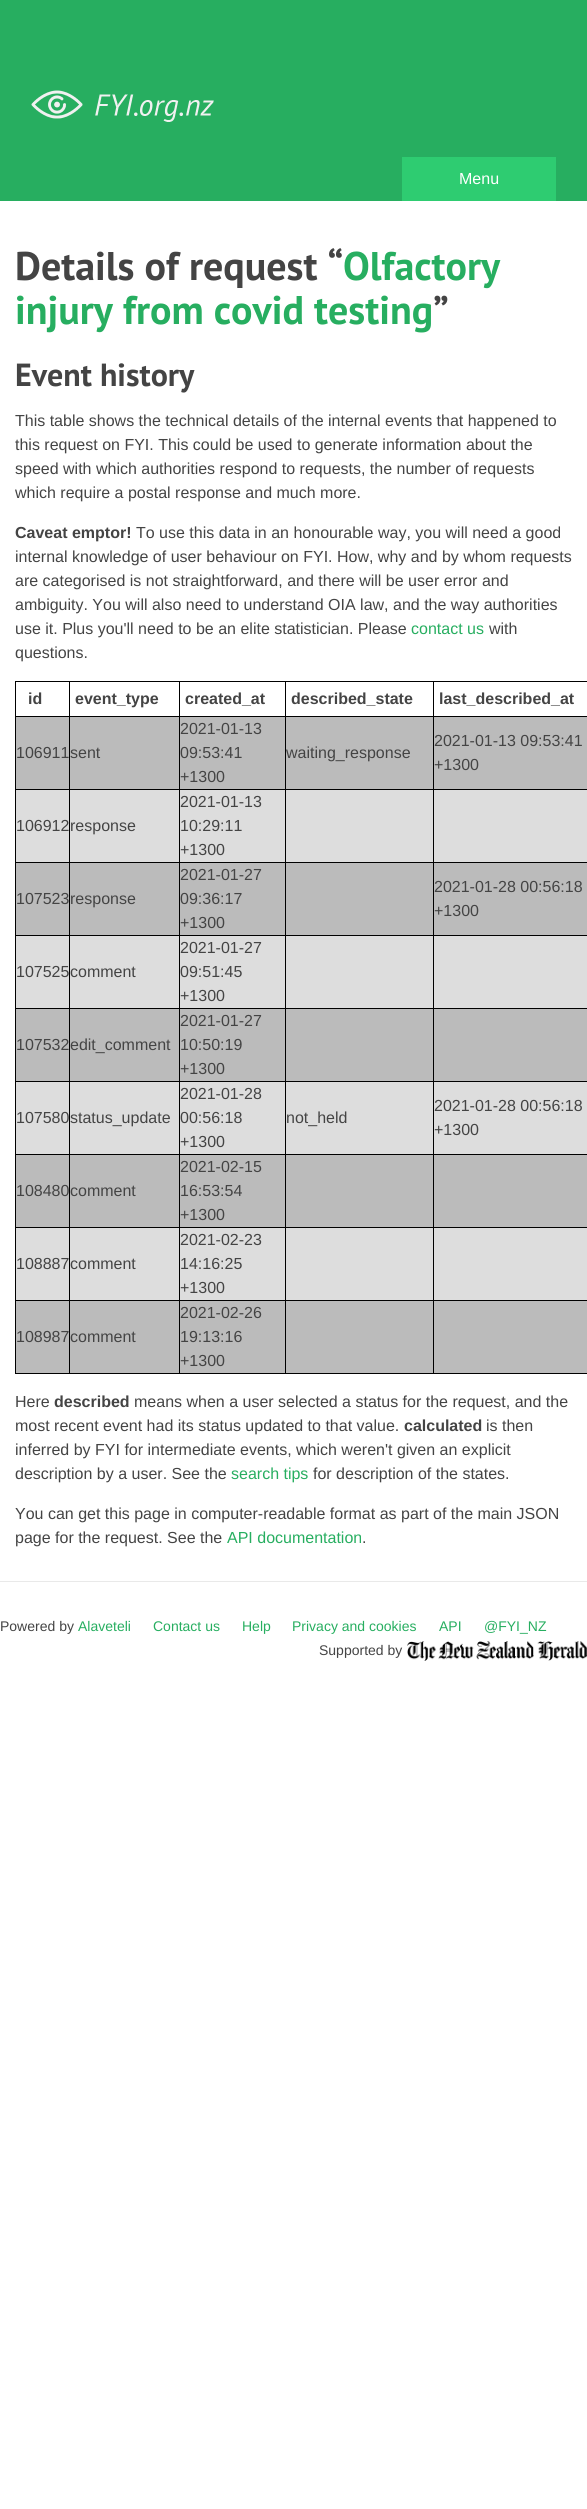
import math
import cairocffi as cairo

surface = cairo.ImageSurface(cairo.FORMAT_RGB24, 587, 2509)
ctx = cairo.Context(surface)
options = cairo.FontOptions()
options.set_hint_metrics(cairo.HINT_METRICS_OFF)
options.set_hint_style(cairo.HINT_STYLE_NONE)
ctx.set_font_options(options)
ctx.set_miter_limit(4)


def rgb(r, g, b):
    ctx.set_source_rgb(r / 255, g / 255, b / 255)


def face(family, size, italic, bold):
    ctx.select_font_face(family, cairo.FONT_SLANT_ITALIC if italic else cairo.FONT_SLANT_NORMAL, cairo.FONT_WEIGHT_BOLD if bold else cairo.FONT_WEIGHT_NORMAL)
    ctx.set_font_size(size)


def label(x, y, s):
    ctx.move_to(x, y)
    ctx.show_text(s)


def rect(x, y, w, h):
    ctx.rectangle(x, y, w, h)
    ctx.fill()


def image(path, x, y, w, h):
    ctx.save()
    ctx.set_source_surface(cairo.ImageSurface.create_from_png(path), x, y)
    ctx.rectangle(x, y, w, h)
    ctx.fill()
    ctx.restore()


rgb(255, 255, 255)
ctx.paint()
rgb(39, 174, 96)
rect(0, 0, 587, 201)
image('image0.png', 31, 90, 183, 32)
rgb(46, 204, 113)
rect(402, 157, 154, 44)
face('Liberation Sans', 16, 0, 0)
rgb(255, 255, 255)
label(459, 184, 'Menu')
face('PT Sans', 40, 0, 1)
rgb(68, 68, 68)
label(15, 280, 'Details of request “')
rgb(39, 174, 96)
label(343, 280, 'Olfactory')
label(15, 324, 'injury from covid testing')
rgb(68, 68, 68)
label(433, 324, '”')
face('PT Sans', 32, 0, 1)
label(15, 386, 'Event history')
face('Liberation Sans', 16, 0, 0)
label(15, 426, 'This table shows the technical details of the internal events that happened to')
label(15, 450, 'this request on FYI. This could be used to generate information about the')
label(15, 474, 'speed with which authorities respond to requests, the number of requests')
label(15, 498, 'which require a postal response and much more.')
face('Liberation Sans', 16, 0, 1)
label(15, 538, 'Caveat emptor!')
face('Liberation Sans', 16, 0, 0)
label(136, 538, 'To use this data in an honourable way, you will need a good')
label(15, 562, 'internal knowledge of user behaviour on FYI. How, why and by whom requests')
label(15, 586, 'are categorised is not straightforward, and there will be user error and')
label(15, 610, 'ambiguity. You will also need to understand OIA law, and the way authorities')
label(15, 634, 'use it. Plus you\'ll need to be an elite statistician. Please')
rgb(39, 174, 96)
label(411, 634, 'contact us')
rgb(68, 68, 68)
label(489, 634, 'with')
label(15, 658, 'questions.')
rgb(0, 0, 0)
rect(433, 681, 154, 1)
rect(433, 716, 154, 1)
rgb(187, 187, 187)
rect(16, 717, 571, 72)
rgb(0, 0, 0)
rect(433, 789, 154, 1)
rgb(221, 221, 221)
rect(16, 790, 571, 72)
rgb(0, 0, 0)
rect(433, 862, 154, 1)
rgb(187, 187, 187)
rect(16, 863, 571, 72)
rgb(0, 0, 0)
rect(433, 935, 154, 1)
rgb(221, 221, 221)
rect(16, 936, 571, 72)
rgb(0, 0, 0)
rect(433, 1008, 154, 1)
rgb(187, 187, 187)
rect(16, 1009, 571, 72)
rgb(0, 0, 0)
rect(433, 1081, 154, 1)
rgb(221, 221, 221)
rect(16, 1082, 571, 72)
rgb(0, 0, 0)
rect(433, 1154, 154, 1)
rgb(187, 187, 187)
rect(16, 1155, 571, 72)
rgb(0, 0, 0)
rect(433, 1227, 154, 1)
rgb(221, 221, 221)
rect(16, 1228, 571, 72)
rgb(0, 0, 0)
rect(433, 1300, 154, 1)
rgb(187, 187, 187)
rect(16, 1301, 571, 72)
rgb(0, 0, 0)
rect(433, 1373, 154, 1)
rect(433, 1300, 1, 74)
rect(285, 1300, 149, 1)
rect(433, 1227, 1, 74)
rect(285, 1227, 149, 1)
rect(433, 1154, 1, 74)
rect(285, 1154, 149, 1)
rect(433, 1081, 1, 74)
rect(285, 1081, 149, 1)
rect(433, 1008, 1, 74)
rect(285, 1008, 149, 1)
rect(433, 935, 1, 74)
rect(285, 935, 149, 1)
rect(433, 862, 1, 74)
rect(285, 862, 149, 1)
rect(433, 789, 1, 74)
rect(285, 789, 149, 1)
rect(433, 716, 1, 74)
rect(285, 716, 149, 1)
rect(433, 681, 1, 36)
rect(285, 681, 149, 1)
rect(285, 1373, 149, 1)
rect(285, 1300, 1, 74)
rect(179, 1300, 107, 1)
rect(285, 1227, 1, 74)
rect(179, 1227, 107, 1)
rect(285, 1154, 1, 74)
rect(179, 1154, 107, 1)
rect(285, 1081, 1, 74)
rect(179, 1081, 107, 1)
rect(285, 1008, 1, 74)
rect(179, 1008, 107, 1)
rect(285, 935, 1, 74)
rect(179, 935, 107, 1)
rect(285, 862, 1, 74)
rect(179, 862, 107, 1)
rect(285, 789, 1, 74)
rect(179, 789, 107, 1)
rect(285, 716, 1, 74)
rect(179, 716, 107, 1)
rect(285, 681, 1, 36)
rect(179, 681, 107, 1)
rect(179, 1373, 107, 1)
rect(179, 1300, 1, 74)
rect(69, 1300, 111, 1)
rect(179, 1227, 1, 74)
rect(69, 1227, 111, 1)
rect(179, 1154, 1, 74)
rect(69, 1154, 111, 1)
rect(179, 1081, 1, 74)
rect(69, 1081, 111, 1)
rect(179, 1008, 1, 74)
rect(69, 1008, 111, 1)
rect(179, 935, 1, 74)
rect(69, 935, 111, 1)
rect(179, 862, 1, 74)
rect(69, 862, 111, 1)
rect(179, 789, 1, 74)
rect(69, 789, 111, 1)
rect(179, 716, 1, 74)
rect(69, 716, 111, 1)
rect(179, 681, 1, 36)
rect(69, 681, 111, 1)
rect(69, 1373, 111, 1)
rect(69, 1300, 1, 74)
rect(15, 1300, 55, 1)
rect(69, 1227, 1, 74)
rect(15, 1227, 55, 1)
rect(69, 1154, 1, 74)
rect(15, 1154, 55, 1)
rect(69, 1081, 1, 74)
rect(15, 1081, 55, 1)
rect(69, 1008, 1, 74)
rect(15, 1008, 55, 1)
rect(69, 935, 1, 74)
rect(15, 935, 55, 1)
rect(69, 862, 1, 74)
rect(15, 862, 55, 1)
rect(69, 789, 1, 74)
rect(15, 789, 55, 1)
rect(69, 716, 1, 74)
rect(15, 716, 55, 1)
rect(69, 681, 1, 36)
rect(15, 681, 55, 1)
rect(15, 1373, 55, 1)
rect(15, 1300, 1, 74)
rect(15, 1227, 1, 74)
rect(15, 1154, 1, 74)
rect(15, 1081, 1, 74)
rect(15, 1008, 1, 74)
rect(15, 935, 1, 74)
rect(15, 862, 1, 74)
rect(15, 789, 1, 74)
rect(15, 716, 1, 74)
rect(15, 681, 1, 36)
face('Liberation Sans', 16, 0, 1)
rgb(68, 68, 68)
label(28, 704, 'id')
label(75, 704, 'event_type')
label(185, 704, 'created_at')
label(291, 704, 'described_state')
label(439, 704, 'last_described_at')
face('Liberation Sans', 16, 0, 0)
label(16, 758, '106911')
label(70, 758, 'sent')
label(180, 734, '2021-01-13')
label(180, 758, '09:53:41')
label(180, 782, '+1300')
label(286, 758, 'waiting_response')
label(434, 746, '2021-01-13 09:53:41')
label(434, 770, '+1300')
label(16, 831, '106912')
label(70, 831, 'response')
label(180, 807, '2021-01-13')
label(180, 831, '10:29:11')
label(180, 855, '+1300')
label(16, 904, '107523')
label(70, 904, 'response')
label(180, 880, '2021-01-27')
label(180, 904, '09:36:17')
label(180, 928, '+1300')
label(434, 892, '2021-01-28 00:56:18')
label(434, 916, '+1300')
label(16, 977, '107525')
label(70, 977, 'comment')
label(180, 953, '2021-01-27')
label(180, 977, '09:51:45')
label(180, 1001, '+1300')
label(16, 1050, '107532')
label(70, 1050, 'edit_comment')
label(180, 1026, '2021-01-27')
label(180, 1050, '10:50:19')
label(180, 1074, '+1300')
label(16, 1123, '107580')
label(70, 1123, 'status_update')
label(180, 1099, '2021-01-28')
label(180, 1123, '00:56:18')
label(180, 1147, '+1300')
label(286, 1123, 'not_held')
label(434, 1111, '2021-01-28 00:56:18')
label(434, 1135, '+1300')
label(16, 1196, '108480')
label(70, 1196, 'comment')
label(180, 1172, '2021-02-15')
label(180, 1196, '16:53:54')
label(180, 1220, '+1300')
label(16, 1269, '108887')
label(70, 1269, 'comment')
label(180, 1245, '2021-02-23')
label(180, 1269, '14:16:25')
label(180, 1293, '+1300')
label(16, 1342, '108987')
label(70, 1342, 'comment')
label(180, 1318, '2021-02-26')
label(180, 1342, '19:13:16')
label(180, 1366, '+1300')
label(15, 1407, 'Here')
face('Liberation Sans', 16, 0, 1)
label(54, 1407, 'described')
face('Liberation Sans', 16, 0, 0)
label(134, 1407, 'means when a user selected a status for the request, and the')
label(15, 1431, 'most recent event had its status updated to that value.')
face('Liberation Sans', 16, 0, 1)
label(404, 1431, 'calculated')
face('Liberation Sans', 16, 0, 0)
label(486, 1431, 'is then')
label(15, 1455, 'inferred by FYI for intermediate events, which weren\'t given an explicit')
label(15, 1479, 'description by a user. See the')
rgb(39, 174, 96)
label(231, 1479, 'search tips')
rgb(68, 68, 68)
label(313, 1479, 'for description of the states.')
label(15, 1519, 'You can get this page in computer-readable format as part of the main JSON')
label(15, 1543, 'page for the request. See the')
rgb(39, 174, 96)
label(227, 1543, 'API documentation')
rgb(68, 68, 68)
label(362, 1543, '.')
rgb(233, 233, 233)
rect(0, 1581, 587, 1)
face('Liberation Sans', 14, 0, 0)
rgb(68, 68, 68)
label(0, 1631, 'Powered by')
rgb(39, 174, 96)
label(78, 1631, 'Alaveteli')
label(153, 1631, 'Contact us')
label(242, 1631, 'Help')
label(292, 1631, 'Privacy and cookies')
label(439, 1631, 'API')
label(484, 1631, '@FYI_NZ')
rgb(68, 68, 68)
label(319, 1655, 'Supported by')
image('image1.png', 407, 1641, 180, 20)
surface.write_to_png('render.png')
